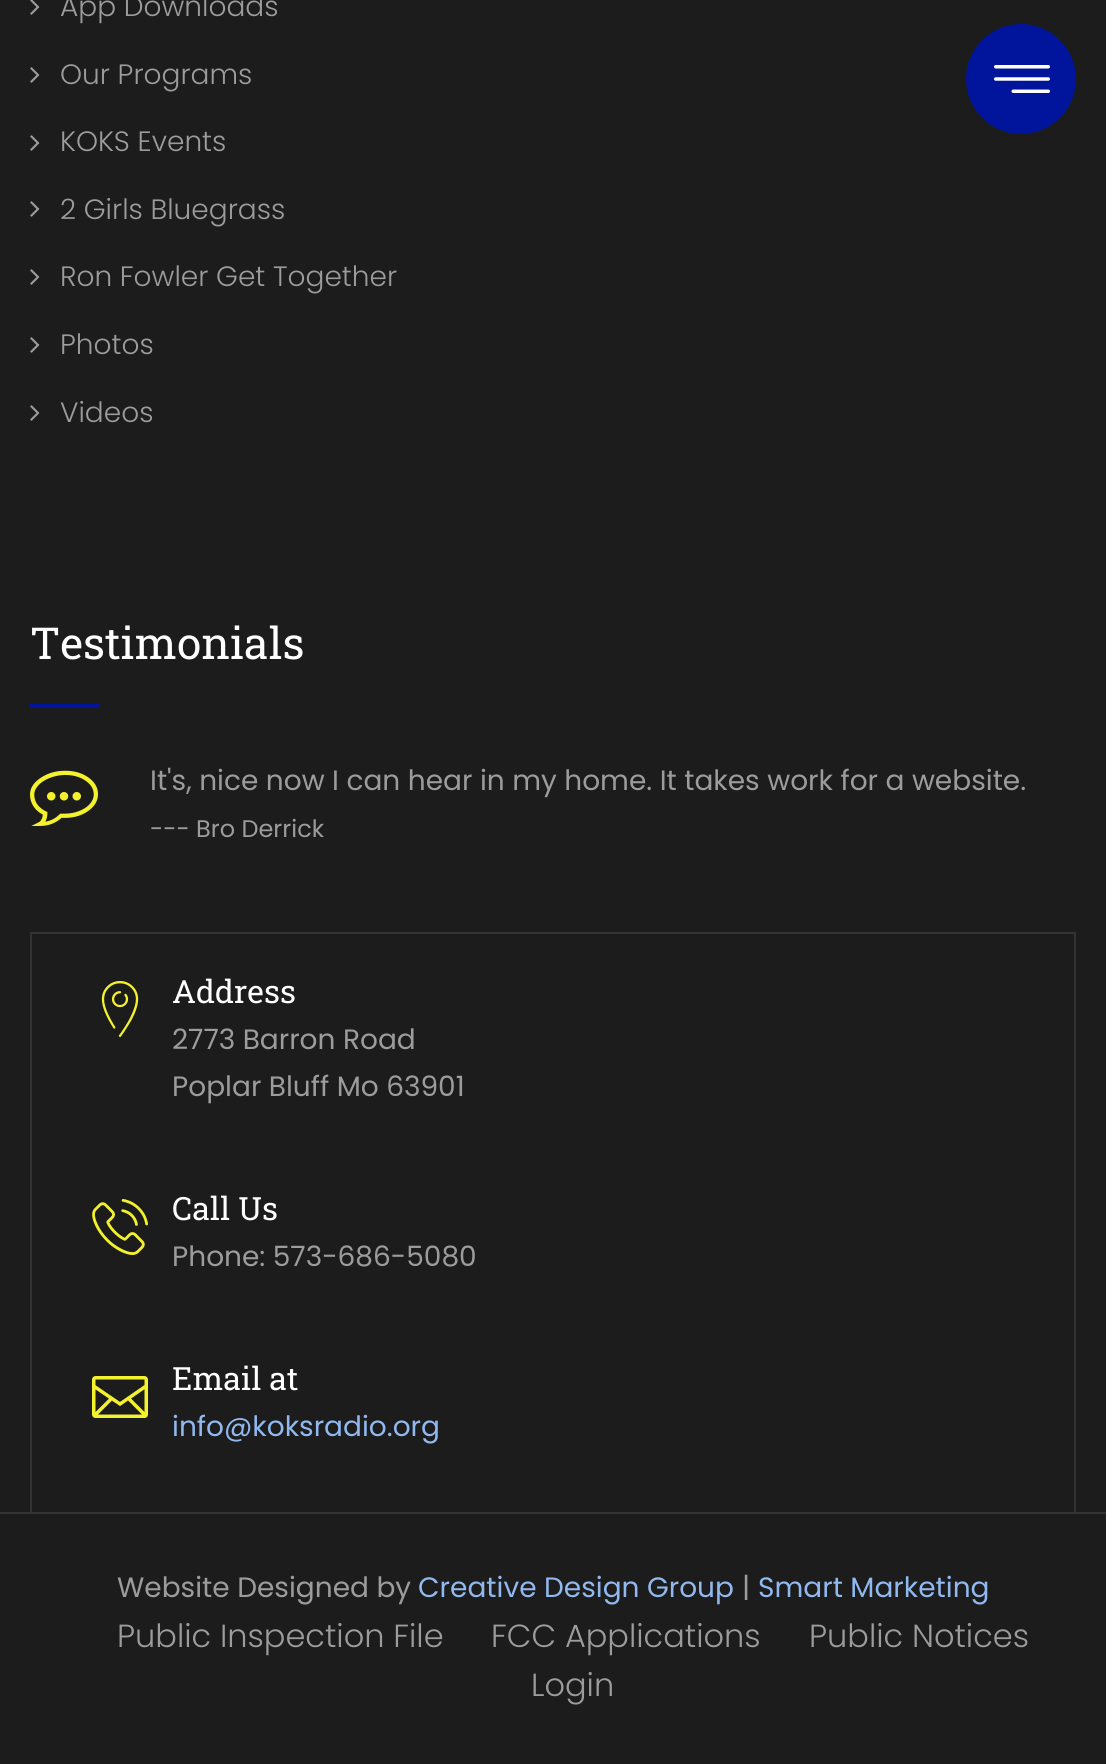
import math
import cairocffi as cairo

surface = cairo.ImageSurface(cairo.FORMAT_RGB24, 1106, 1764)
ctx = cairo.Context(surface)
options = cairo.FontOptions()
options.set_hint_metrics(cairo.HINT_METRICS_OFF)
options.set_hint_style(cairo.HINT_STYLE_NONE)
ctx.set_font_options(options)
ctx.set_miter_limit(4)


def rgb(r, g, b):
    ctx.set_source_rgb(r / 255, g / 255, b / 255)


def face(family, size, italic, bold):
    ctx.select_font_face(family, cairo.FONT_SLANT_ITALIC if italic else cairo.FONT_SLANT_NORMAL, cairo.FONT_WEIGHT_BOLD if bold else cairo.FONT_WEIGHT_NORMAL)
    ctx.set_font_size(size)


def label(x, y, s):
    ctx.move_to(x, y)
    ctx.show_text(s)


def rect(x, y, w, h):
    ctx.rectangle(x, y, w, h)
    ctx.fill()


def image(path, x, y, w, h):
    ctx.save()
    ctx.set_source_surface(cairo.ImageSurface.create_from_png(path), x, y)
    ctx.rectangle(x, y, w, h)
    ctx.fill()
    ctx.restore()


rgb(28, 28, 28)
ctx.paint()
image('image0.png', 30, 0, 10, 15)
face('Poppins Light', 28, 0, 0)
rgb(156, 156, 156)
label(60, 16, 'App Downloads')
image('image1.png', 30, 67, 10, 16)
label(60, 84, 'Our Programs')
image('image1.png', 30, 135, 10, 16)
label(60, 151, 'KOKS Events')
image('image1.png', 30, 201, 10, 16)
label(60, 219, '2 Girls Bluegrass')
image('image1.png', 30, 269, 10, 16)
label(60, 286, 'Ron Fowler Get Together')
image('image1.png', 30, 337, 10, 16)
label(60, 354, 'Photos')
image('image1.png', 30, 405, 10, 16)
label(60, 422, 'Videos')
face('Roboto Slab', 44, 0, 0)
rgb(255, 255, 255)
label(30, 659, 'Testimonials')
rgb(1, 21, 156)
rect(30, 704, 70, 4)
image('image2.png', 30, 770, 68, 56)
face('Poppins', 28, 0, 0)
rgb(156, 156, 156)
label(150, 790, 'It\'s, nice now I can hear in my home. It takes work for a website.')
face('Poppins', 24, 0, 0)
label(150, 837, '--- Bro Derrick')
rgb(51, 51, 51)
ctx.new_path()
ctx.move_to(30, 932)
ctx.line_to(1076, 932)
ctx.line_to(1074, 934)
ctx.line_to(32, 934)
ctx.close_path()
ctx.fill()
ctx.set_source_rgba(1, 1, 1, 0.1)
ctx.new_path()
ctx.move_to(1076, 932)
ctx.line_to(1076, 1512)
ctx.line_to(1074, 1512)
ctx.line_to(1074, 934)
ctx.close_path()
ctx.fill()
ctx.new_path()
ctx.move_to(30, 1512)
ctx.line_to(30, 932)
ctx.line_to(32, 934)
ctx.line_to(32, 1512)
ctx.close_path()
ctx.fill()
image('image3.png', 101, 981, 38, 56)
face('Roboto Slab', 32, 0, 0)
rgb(255, 255, 255)
label(172, 1003, 'Address')
face('Poppins', 28, 0, 0)
rgb(156, 156, 156)
label(172, 1049, '2773 Barron Road')
label(172, 1096, 'Poplar Bluff Mo 63901')
image('image4.png', 92, 1199, 56, 56)
face('Roboto Slab', 32, 0, 0)
rgb(255, 255, 255)
label(172, 1220, 'Call Us')
face('Poppins', 28, 0, 0)
rgb(156, 156, 156)
label(172, 1266, 'Phone: 573-686-5080')
image('image5.png', 92, 1376, 56, 42)
face('Roboto Slab', 32, 0, 0)
rgb(255, 255, 255)
label(172, 1390, 'Email at')
face('Poppins', 28, 0, 0)
rgb(145, 185, 240)
label(172, 1436, 'info@koksradio.org')
rgb(51, 51, 51)
rect(0, 1512, 1106, 2)
rgb(156, 156, 156)
label(117, 1597, 'Website Designed by')
rgb(145, 185, 240)
label(418, 1597, 'Creative Design Group')
rgb(156, 156, 156)
label(742, 1597, '|')
rgb(145, 185, 240)
label(758, 1597, 'Smart Marketing')
face('Poppins Light', 32, 0, 0)
rgb(156, 156, 156)
label(117, 1647, 'Public Inspection File')
label(491, 1647, 'FCC Applications')
label(809, 1647, 'Public Notices')
label(531, 1696, 'Login')
rgb(1, 21, 156)
ctx.new_path()
ctx.arc(1021, 79, 55, 0, 2 * math.pi)
ctx.fill()
image('image6.png', 994, 65, 56, 28)
surface.write_to_png('render.png')
